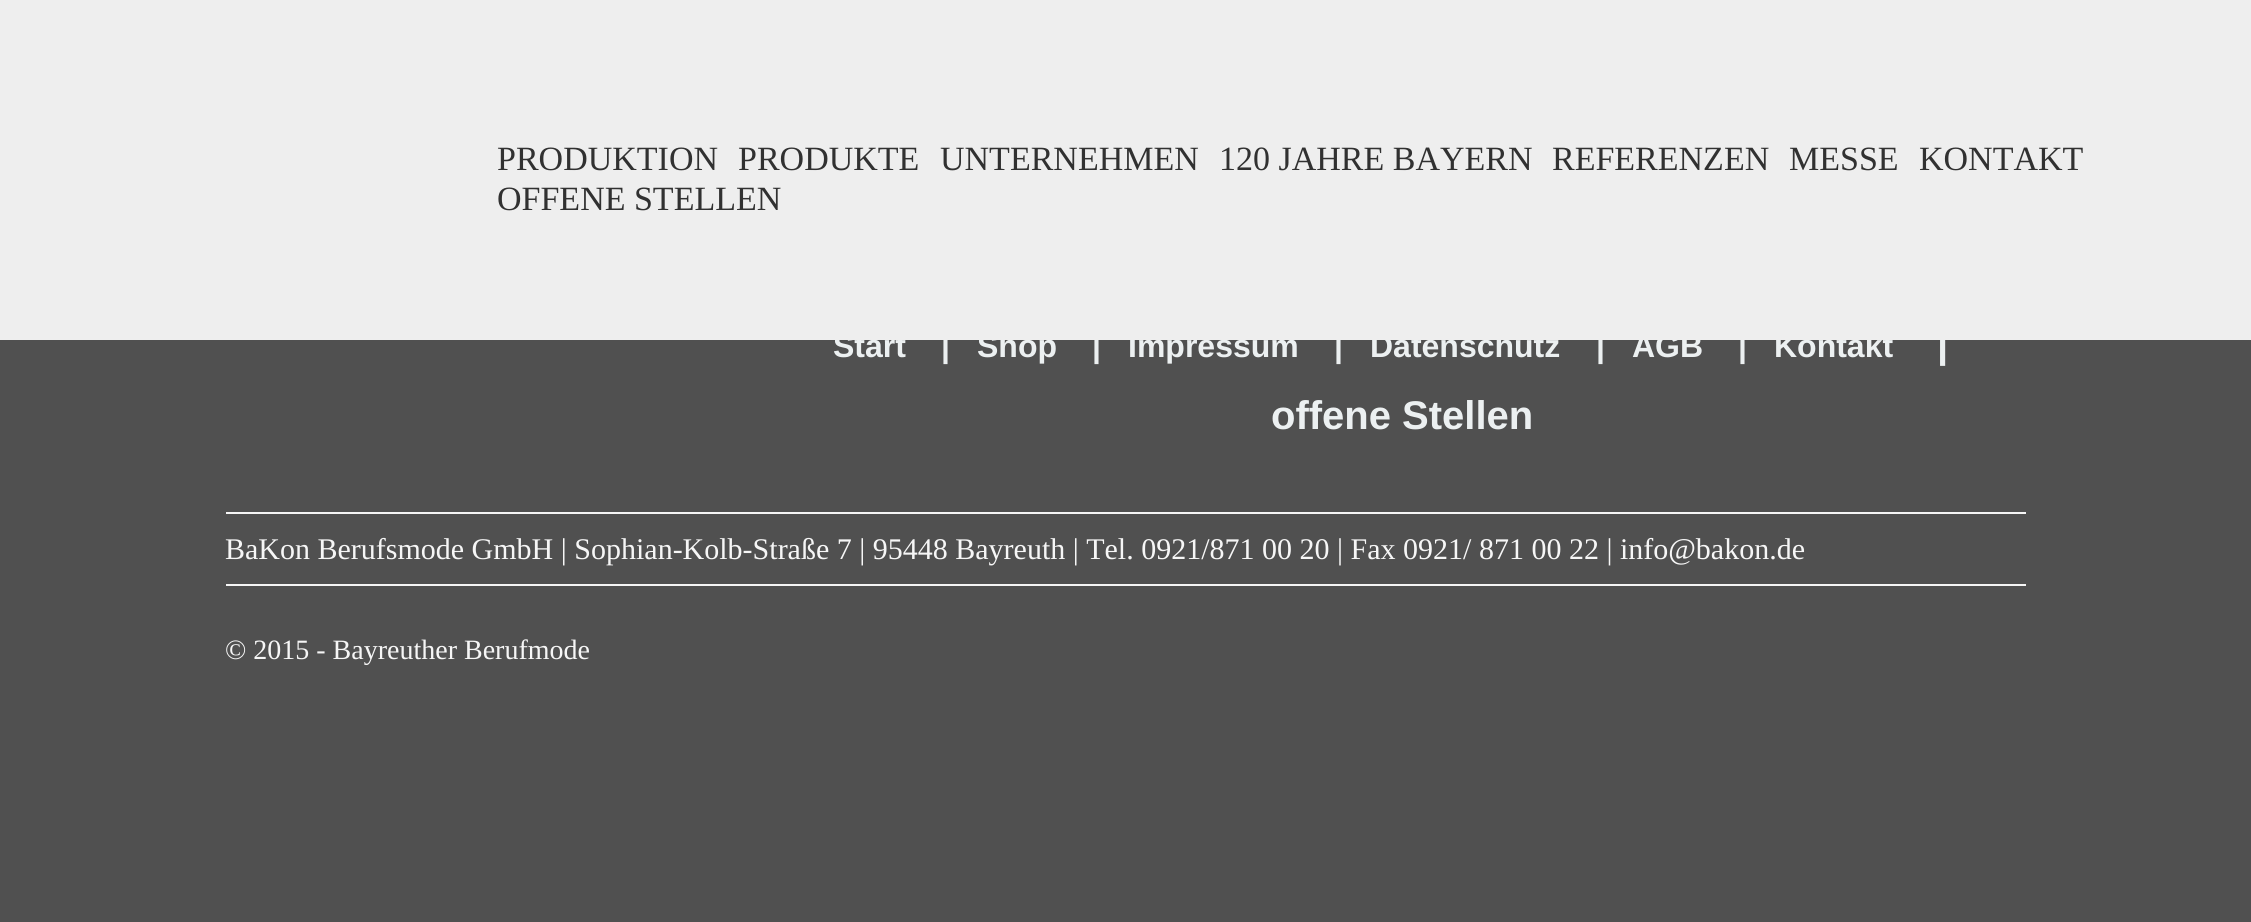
import math
import cairocffi as cairo

surface = cairo.ImageSurface(cairo.FORMAT_RGB24, 2251, 922)
ctx = cairo.Context(surface)
options = cairo.FontOptions()
options.set_hint_metrics(cairo.HINT_METRICS_OFF)
options.set_hint_style(cairo.HINT_STYLE_NONE)
ctx.set_font_options(options)
ctx.set_miter_limit(4)


def rgb(r, g, b):
    ctx.set_source_rgb(r / 255, g / 255, b / 255)


def face(family, size, italic, bold):
    ctx.select_font_face(family, cairo.FONT_SLANT_ITALIC if italic else cairo.FONT_SLANT_NORMAL, cairo.FONT_WEIGHT_BOLD if bold else cairo.FONT_WEIGHT_NORMAL)
    ctx.set_font_size(size)


def label(x, y, s):
    ctx.move_to(x, y)
    ctx.show_text(s)


def rect(x, y, w, h):
    ctx.rectangle(x, y, w, h)
    ctx.fill()


rgb(80, 80, 80)
ctx.paint()
face('Liberation Sans', 32, 0, 1)
rgb(236, 240, 241)
label(833, 357, 'Start')
label(941, 357, '|')
label(977, 357, 'Shop')
label(1092, 357, '|')
label(1128, 357, 'Impressum')
label(1334, 357, '|')
label(1370, 357, 'Datenschutz')
label(1596, 357, '|')
label(1632, 357, 'AGB')
label(1738, 357, '|')
label(1774, 357, 'Kontakt')
face('Liberation Sans', 40, 0, 1)
label(1937, 357, '|')
rgb(238, 238, 238)
rect(0, 0, 2251, 340)
face('Liberation Serif', 34, 0, 0)
rgb(49, 49, 49)
label(497, 170, 'PRODUKTION')
label(738, 170, 'PRODUKTE')
label(940, 170, 'UNTERNEHMEN')
label(1219, 170, '120 JAHRE BAYERN')
label(1552, 170, 'REFERENZEN')
label(1789, 170, 'MESSE')
label(1919, 170, 'KONTAKT')
label(497, 210, 'OFFENE STELLEN')
face('Liberation Sans', 40, 0, 1)
rgb(236, 240, 241)
label(1271, 429, 'offene Stellen')
rgb(246, 246, 246)
rect(226, 512, 1800, 2)
rect(226, 584, 1800, 2)
face('Liberation Serif', 30, 0, 0)
label(225, 559, 'BaKon Berufsmode GmbH | Sophian-Kolb-Straße 7 | 95448 Bayreuth | Tel. 0921/871 00 20 | Fax 0921/ 871 00 22 | info@bakon.de')
face('Liberation Serif', 28, 0, 0)
label(225, 659, '© 2015 - Bayreuther Berufmode')
surface.write_to_png('render.png')
